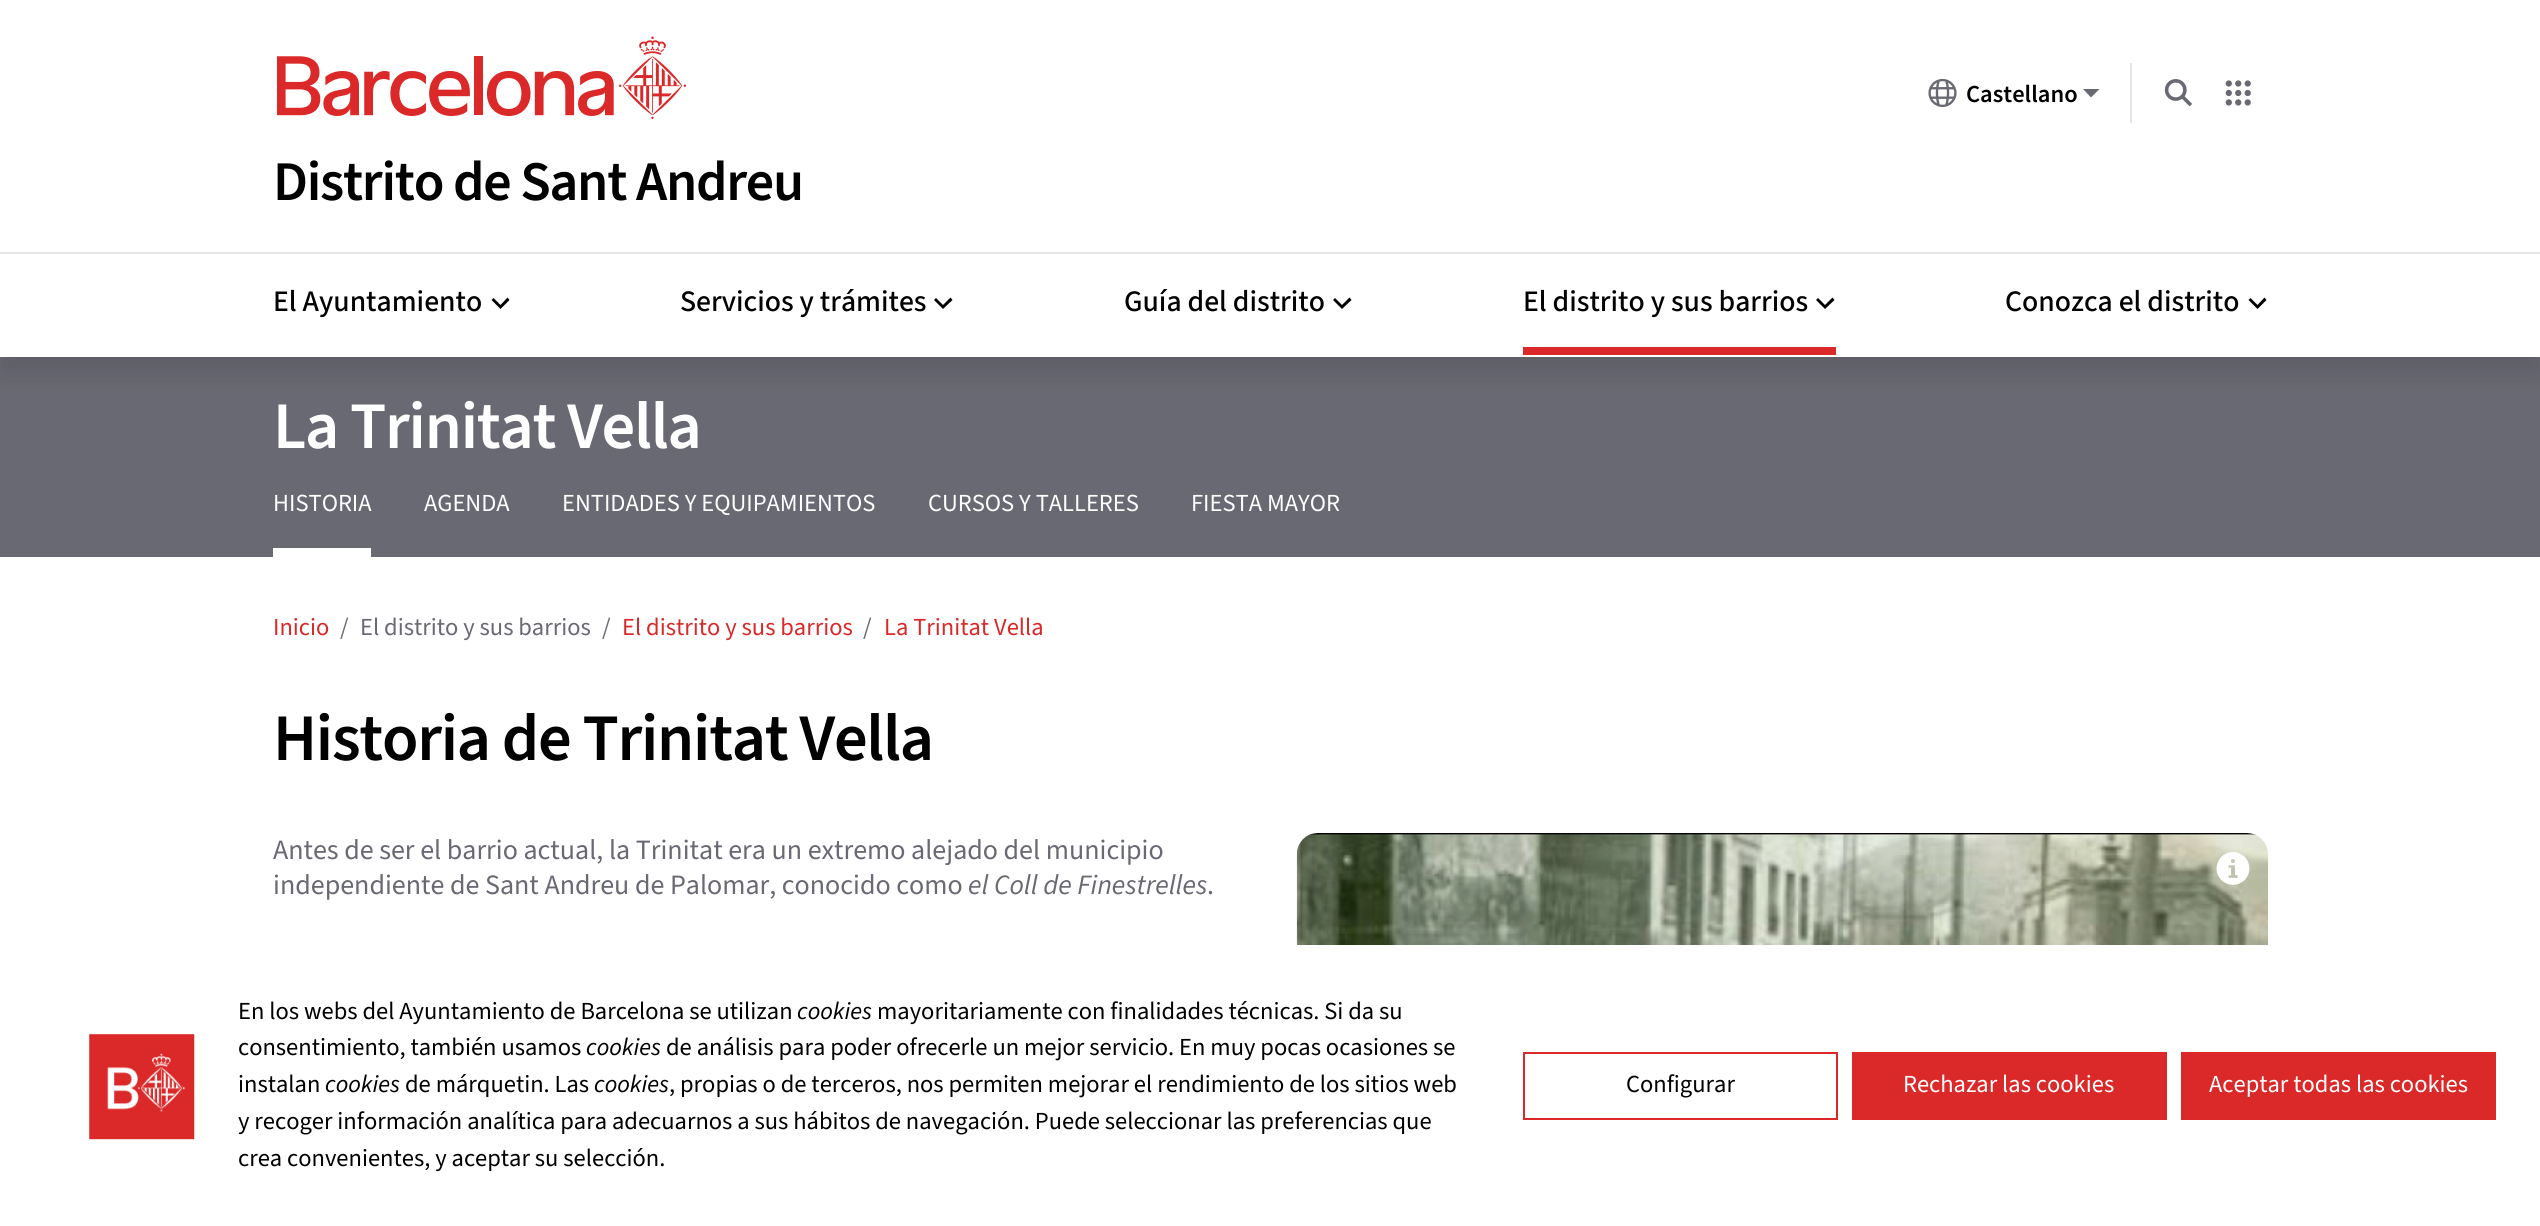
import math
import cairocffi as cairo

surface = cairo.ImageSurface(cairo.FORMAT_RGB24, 2540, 1226)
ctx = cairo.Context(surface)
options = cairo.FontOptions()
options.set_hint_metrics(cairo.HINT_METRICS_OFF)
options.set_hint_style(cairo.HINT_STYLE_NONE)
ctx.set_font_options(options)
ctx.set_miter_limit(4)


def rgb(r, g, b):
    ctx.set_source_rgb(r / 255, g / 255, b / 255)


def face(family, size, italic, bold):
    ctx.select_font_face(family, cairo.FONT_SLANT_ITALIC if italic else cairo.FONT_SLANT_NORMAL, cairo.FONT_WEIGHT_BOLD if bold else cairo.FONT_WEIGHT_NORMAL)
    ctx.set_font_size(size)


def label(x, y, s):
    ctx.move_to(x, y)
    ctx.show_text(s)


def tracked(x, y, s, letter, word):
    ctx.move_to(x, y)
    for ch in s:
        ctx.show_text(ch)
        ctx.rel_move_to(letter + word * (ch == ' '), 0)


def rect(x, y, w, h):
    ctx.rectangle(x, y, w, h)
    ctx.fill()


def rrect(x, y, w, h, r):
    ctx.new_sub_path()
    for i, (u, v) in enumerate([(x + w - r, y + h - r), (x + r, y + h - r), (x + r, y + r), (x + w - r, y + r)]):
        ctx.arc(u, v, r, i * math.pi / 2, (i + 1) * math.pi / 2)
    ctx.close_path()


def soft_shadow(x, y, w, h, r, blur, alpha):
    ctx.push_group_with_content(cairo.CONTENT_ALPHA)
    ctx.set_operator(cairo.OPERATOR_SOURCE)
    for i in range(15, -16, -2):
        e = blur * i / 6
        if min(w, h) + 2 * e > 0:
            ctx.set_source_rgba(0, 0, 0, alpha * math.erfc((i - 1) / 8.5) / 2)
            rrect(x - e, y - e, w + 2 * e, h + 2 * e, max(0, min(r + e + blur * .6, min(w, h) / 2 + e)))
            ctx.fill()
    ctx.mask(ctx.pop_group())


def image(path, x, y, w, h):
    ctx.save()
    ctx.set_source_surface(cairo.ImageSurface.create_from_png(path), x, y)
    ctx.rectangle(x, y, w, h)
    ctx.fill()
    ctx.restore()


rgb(255, 255, 255)
ctx.paint()
image('image0.png', 277, 36, 409, 83)
rgb(229, 229, 229)
rect(2130, 63, 2, 60)
image('image1.png', 1928, 78, 29, 30)
face('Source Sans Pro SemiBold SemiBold', 24.5, 0, 0)
rgb(0, 0, 0)
label(1966, 102, 'Castellano')
rgb(105, 105, 115)
ctx.new_path()
ctx.move_to(2083, 89)
ctx.line_to(2091, 97.5)
ctx.line_to(2099.5, 89)
ctx.close_path()
ctx.fill()
image('image2.png', 2164, 79, 29, 28)
image('image3.png', 2225, 80, 26, 26)
rect(0, 357, 2540, 200)
ctx.save()
ctx.rectangle(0, 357, 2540, 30)
ctx.clip()
rgb(0, 0, 0)
soft_shadow(0, 172, 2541, 203, 0, 14, 0.1)
ctx.restore()
face('Source Sans 3 SemiBold', 56, 0, 0)
rgb(0, 0, 0)
tracked(273, 200, 'Distrito de Sant Andreu', -1.3, 0)
rgb(229, 229, 229)
rect(0, 252, 2540, 2)
face('Source Sans 3 Medium', 29.75, 0, 0)
rgb(0, 0, 0)
label(273, 311, 'El Ayuntamiento')
ctx.new_path()
ctx.move_to(500.5, 309)
ctx.line_to(491.5, 300)
ctx.line_to(493.5, 298)
ctx.line_to(500.5, 305)
ctx.line_to(507.5, 297.5)
ctx.line_to(509.5, 300)
ctx.close_path()
ctx.fill()
label(680, 311, 'Servicios y trámites')
ctx.new_path()
ctx.move_to(943, 309)
ctx.line_to(934, 300)
ctx.line_to(936, 298)
ctx.line_to(943, 305)
ctx.line_to(950.5, 297.5)
ctx.line_to(952.5, 300)
ctx.close_path()
ctx.fill()
label(1124, 311, 'Guía del distrito')
ctx.new_path()
ctx.move_to(1342, 309)
ctx.line_to(1333, 300)
ctx.line_to(1335, 298)
ctx.line_to(1342, 305)
ctx.line_to(1349.5, 297.5)
ctx.line_to(1351.5, 300)
ctx.close_path()
ctx.fill()
rgb(219, 40, 40)
rect(1523, 347, 313, 8)
rgb(0, 0, 0)
label(1523, 311, 'El distrito y sus barrios')
ctx.new_path()
ctx.move_to(1825, 309)
ctx.line_to(1816, 300)
ctx.line_to(1818, 298)
ctx.line_to(1825, 305)
ctx.line_to(1832.5, 297.5)
ctx.line_to(1834.5, 300)
ctx.close_path()
ctx.fill()
label(2005, 311, 'Conozca el distrito')
ctx.new_path()
ctx.move_to(2257.5, 309)
ctx.line_to(2248.5, 300)
ctx.line_to(2250.5, 298)
ctx.line_to(2257.5, 305)
ctx.line_to(2264.5, 297.5)
ctx.line_to(2266.5, 300)
ctx.close_path()
ctx.fill()
face('Source Sans 3 SemiBold', 66.5, 0, 0)
rgb(255, 255, 255)
tracked(273, 448, 'La Trinitat Vella', -1.3, 0)
rect(273, 548, 98, 9)
face('Source Sans 3', 24.5, 0, 0)
label(273, 511, 'HISTORIA')
label(424, 511, 'AGENDA')
label(562, 511, 'ENTIDADES Y EQUIPAMIENTOS')
label(928, 511, 'CURSOS Y TALLERES')
label(1191, 511, 'FIESTA MAYOR')
rgb(219, 40, 40)
label(273, 635, 'Inicio')
rgb(105, 105, 115)
label(340, 635, '/')
label(360, 635, 'El distrito y sus barrios')
label(602, 635, '/')
rgb(219, 40, 40)
label(622, 635, 'El distrito y sus barrios')
rgb(105, 105, 115)
label(863, 635, '/')
rgb(219, 40, 40)
label(884, 635, 'La Trinitat Vella')
face('Source Sans 3 SemiBold', 66.5, 0, 0)
rgb(0, 0, 0)
tracked(273, 760, 'Historia de Trinitat Vella', -1.3, 0)
face('Source Sans 3', 28, 0, 0)
rgb(105, 105, 115)
label(273, 859, 'Antes de ser el barrio actual, la Trinitat era un extremo alejado del municipio')
label(273, 894, 'independiente de Sant Andreu de Palomar, conocido como')
face('Source Sans 3', 28, 1, 0)
label(968, 894, 'el Coll de Finestrelles')
face('Source Sans 3', 28, 0, 0)
label(1207, 894, '.')
image('image4.png', 1296, 833, 972, 112)
image('image5.png', 2216, 852, 34, 33)
image('image6.png', 89, 1034, 106, 106)
face('Source Sans 3', 24.5, 0, 0)
rgb(0, 0, 0)
label(238, 1019, 'En los webs del Ayuntamiento de Barcelona se utilizan')
face('Source Sans 3', 24.5, 1, 0)
label(797, 1019, 'cookies')
face('Source Sans 3', 24.5, 0, 0)
label(877, 1019, 'mayoritariamente con finalidades técnicas. Si da su')
label(238, 1055, 'consentimiento, también usamos')
face('Source Sans 3', 24.5, 1, 0)
label(586, 1055, 'cookies')
face('Source Sans 3', 24.5, 0, 0)
label(666, 1055, 'de análisis para poder ofrecerle un mejor servicio. En muy pocas ocasiones se')
label(238, 1092, 'instalan')
face('Source Sans 3', 24.5, 1, 0)
label(325, 1092, 'cookies')
face('Source Sans 3', 24.5, 0, 0)
label(405, 1092, 'de márquetin. Las')
face('Source Sans 3', 24.5, 1, 0)
label(594, 1092, 'cookies')
face('Source Sans 3', 24.5, 0, 0)
label(669, 1092, ', propias o de terceros, nos permiten mejorar el rendimiento de los sitios web')
label(238, 1129, 'y recoger información analítica para adecuarnos a sus hábitos de navegación. Puede seleccionar las preferencias que')
label(238, 1166, 'crea convenientes, y aceptar su selección.')
ctx.rectangle(1524, 1053, 313, 66)
rgb(219, 40, 40)
ctx.stroke()
rgb(0, 0, 0)
label(1626, 1092, 'Configurar')
rgb(219, 40, 40)
rect(1852, 1052, 315, 68)
rgb(255, 255, 255)
label(1903, 1092, 'Rechazar las cookies')
rgb(219, 40, 40)
rect(2181, 1052, 315, 68)
rgb(255, 255, 255)
label(2209, 1092, 'Aceptar todas las cookies')
surface.write_to_png('render.png')
